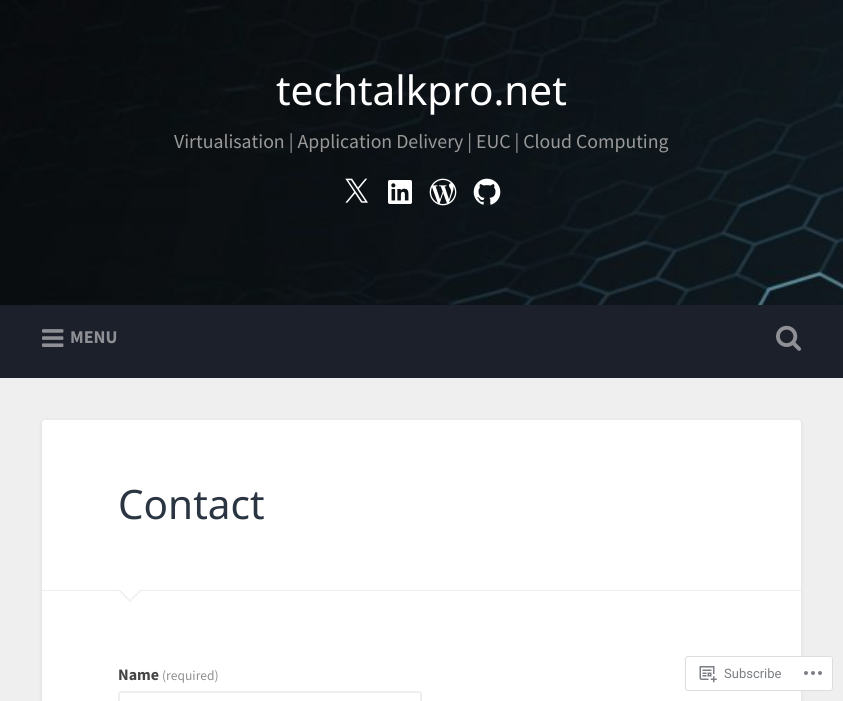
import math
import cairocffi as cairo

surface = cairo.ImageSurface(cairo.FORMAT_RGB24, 843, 701)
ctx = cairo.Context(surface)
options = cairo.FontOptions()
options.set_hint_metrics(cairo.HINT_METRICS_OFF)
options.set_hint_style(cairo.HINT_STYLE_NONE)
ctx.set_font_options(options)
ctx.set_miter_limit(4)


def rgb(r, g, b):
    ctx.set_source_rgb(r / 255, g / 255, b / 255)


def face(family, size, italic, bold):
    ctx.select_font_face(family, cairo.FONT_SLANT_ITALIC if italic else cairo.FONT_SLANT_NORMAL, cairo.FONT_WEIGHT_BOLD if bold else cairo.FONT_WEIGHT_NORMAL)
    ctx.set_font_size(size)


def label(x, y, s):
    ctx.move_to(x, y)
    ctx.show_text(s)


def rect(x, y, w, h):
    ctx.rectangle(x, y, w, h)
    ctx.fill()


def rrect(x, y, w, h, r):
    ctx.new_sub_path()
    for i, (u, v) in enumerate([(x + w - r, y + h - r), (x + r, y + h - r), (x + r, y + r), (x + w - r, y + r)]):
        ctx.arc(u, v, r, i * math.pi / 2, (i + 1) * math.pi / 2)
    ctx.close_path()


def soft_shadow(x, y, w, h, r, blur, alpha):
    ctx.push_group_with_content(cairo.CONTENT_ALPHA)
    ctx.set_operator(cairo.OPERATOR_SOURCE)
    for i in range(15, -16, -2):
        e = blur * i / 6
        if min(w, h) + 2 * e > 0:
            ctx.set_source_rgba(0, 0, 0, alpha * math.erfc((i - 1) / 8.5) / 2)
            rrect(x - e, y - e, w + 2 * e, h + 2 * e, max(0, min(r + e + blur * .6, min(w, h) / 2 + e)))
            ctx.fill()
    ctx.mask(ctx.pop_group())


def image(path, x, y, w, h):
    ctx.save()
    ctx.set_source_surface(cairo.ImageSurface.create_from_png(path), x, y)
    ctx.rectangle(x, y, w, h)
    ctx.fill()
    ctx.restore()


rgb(239, 239, 239)
ctx.paint()
image('image0.png', 0, 0, 843, 305)
face('Noto Sans', 40.5, 0, 0)
rgb(255, 255, 255)
label(276, 105, 'techtalkpro.net')
face('Source Sans Pro', 19.8, 0, 0)
rgb(153, 153, 153)
label(174, 148, 'Virtualisation | Application Delivery | EUC | Cloud Computing')
image('image1.png', 345, 178, 23, 25)
image('image2.png', 388, 180, 24, 24)
image('image3.png', 429, 178, 28, 28)
image('image4.png', 473, 178, 28, 27)
rgb(28, 32, 43)
rect(0, 305, 843, 73)
image('image5.png', 42, 329, 22, 18)
face('Source Sans Pro', 18, 0, 1)
rgb(142, 144, 149)
label(70, 343, 'MENU')
image('image6.png', 776, 325, 25, 26)
rgb(0, 0, 0)
soft_shadow(42, 421, 759, 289, 3, 2, 0.1)
rgb(255, 255, 255)
rrect(42, 420, 759, 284, 3)
ctx.fill()
rgb(238, 238, 238)
rect(42, 590, 759, 1)
face('Noto Sans', 40.5, 0, 0)
rgb(43, 53, 66)
label(118, 519, 'Contact')
rgb(238, 238, 238)
ctx.new_path()
ctx.move_to(118, 590)
ctx.line_to(142, 590)
ctx.line_to(130, 602)
ctx.close_path()
ctx.fill()
rgb(255, 255, 255)
ctx.new_path()
ctx.move_to(119, 589)
ctx.line_to(141, 589)
ctx.line_to(130, 600)
ctx.close_path()
ctx.fill()
face('Source Sans Pro', 16, 0, 1)
rgb(68, 68, 68)
label(118, 680, 'Name')
face('Source Sans Pro', 13.5, 0, 0)
rgb(143, 143, 143)
label(162, 680, '(required)')
rrect(119, 692, 302, 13, 2)
rgb(238, 238, 238)
ctx.stroke()
ctx.set_source_rgba(1, 1, 1, 0.98)
rrect(685, 656, 148, 35, 3)
ctx.fill()
rrect(685.5, 656.5, 147, 34, 2.5)
ctx.set_source_rgba(0.863, 0.863, 0.871, 0.98)
ctx.set_line_width(1)
ctx.stroke()
image('image7.png', 699, 666, 18, 17)
face('Roboto', 13, 0, 0)
rgb(123, 127, 133)
label(724, 678, 'Subscribe')
image('image8.png', 804, 671, 18, 4)
surface.write_to_png('render.png')
